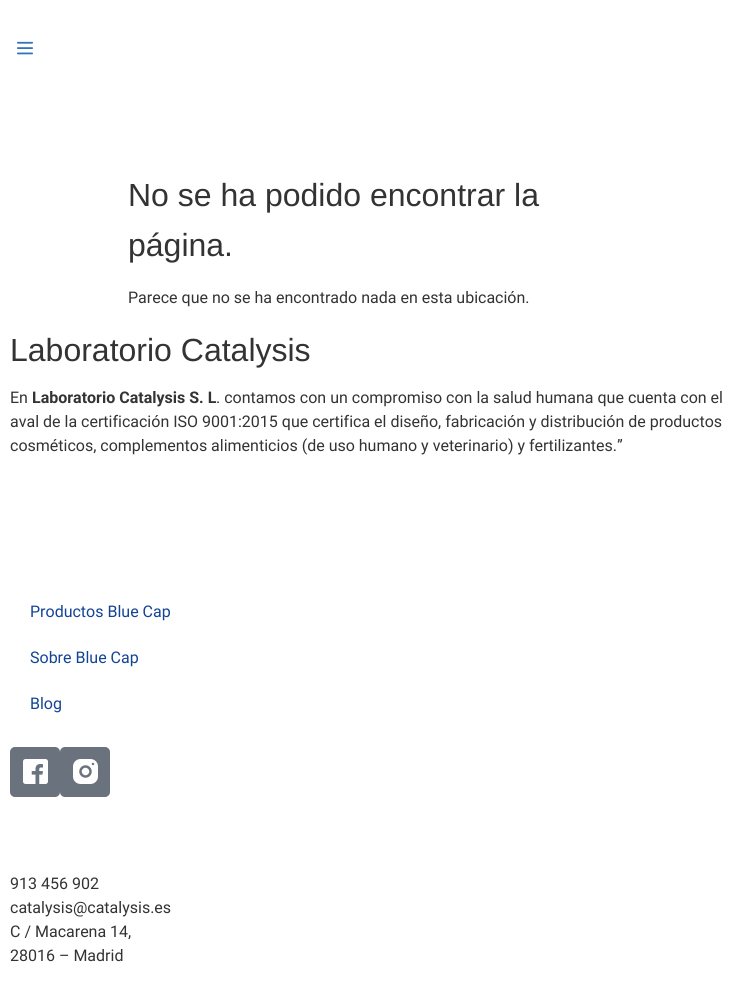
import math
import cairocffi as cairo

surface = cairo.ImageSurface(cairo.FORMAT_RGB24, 756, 996)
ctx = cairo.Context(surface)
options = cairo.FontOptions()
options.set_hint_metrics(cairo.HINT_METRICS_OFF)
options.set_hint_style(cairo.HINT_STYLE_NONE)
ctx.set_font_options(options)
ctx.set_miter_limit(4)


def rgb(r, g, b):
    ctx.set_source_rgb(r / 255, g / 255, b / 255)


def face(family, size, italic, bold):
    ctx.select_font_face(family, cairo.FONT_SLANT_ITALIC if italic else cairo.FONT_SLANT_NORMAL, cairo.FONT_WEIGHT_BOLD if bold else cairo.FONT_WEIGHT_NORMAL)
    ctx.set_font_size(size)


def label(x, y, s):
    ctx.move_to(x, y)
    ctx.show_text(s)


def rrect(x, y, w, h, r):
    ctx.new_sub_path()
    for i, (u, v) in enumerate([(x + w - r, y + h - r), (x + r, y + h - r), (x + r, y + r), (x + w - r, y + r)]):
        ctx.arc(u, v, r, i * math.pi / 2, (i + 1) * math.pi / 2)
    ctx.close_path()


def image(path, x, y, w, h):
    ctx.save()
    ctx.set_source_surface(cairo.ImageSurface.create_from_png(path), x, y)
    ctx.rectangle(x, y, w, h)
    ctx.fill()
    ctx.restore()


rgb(255, 255, 255)
ctx.paint()
image('image0.png', 17, 41, 16, 14)
face('Liberation Sans', 32, 0, 0)
rgb(51, 51, 51)
label(128, 206, 'No se ha podido encontrar la')
label(128, 256, 'página.')
face('Roboto', 16, 0, 0)
label(128, 303, 'Parece que no se ha encontrado nada en esta ubicación.')
face('Liberation Sans', 32, 0, 0)
label(10, 361, 'Laboratorio Catalysis')
face('Roboto', 16, 0, 0)
label(10, 403, 'En')
face('Roboto', 16, 0, 1)
label(32, 403, 'Laboratorio Catalysis S. L')
face('Roboto', 16, 0, 0)
label(216, 403, '. contamos con un compromiso con la salud humana que cuenta con el')
label(10, 427, 'aval de la certificación ISO 9001:2015 que certifica el diseño, fabricación y distribución de productos')
label(10, 451, 'cosméticos, complementos alimenticios (de uso humano y veterinario) y fertilizantes.”')
rgb(19, 67, 149)
label(30, 617, 'Productos Blue Cap')
label(30, 663, 'Sobre Blue Cap')
label(30, 709, 'Blog')
rgb(105, 114, 125)
rrect(10, 747, 50, 50, 5)
ctx.fill()
image('image1.png', 23, 759, 25, 25)
rrect(60, 747, 50, 50, 5)
ctx.fill()
image('image2.png', 73, 759, 25, 25)
rgb(51, 51, 51)
label(10, 889, '913 456 902')
label(10, 913, 'catalysis@catalysis.es')
label(10, 937, 'C / Macarena 14,')
label(10, 961, '28016 – Madrid')
surface.write_to_png('render.png')
